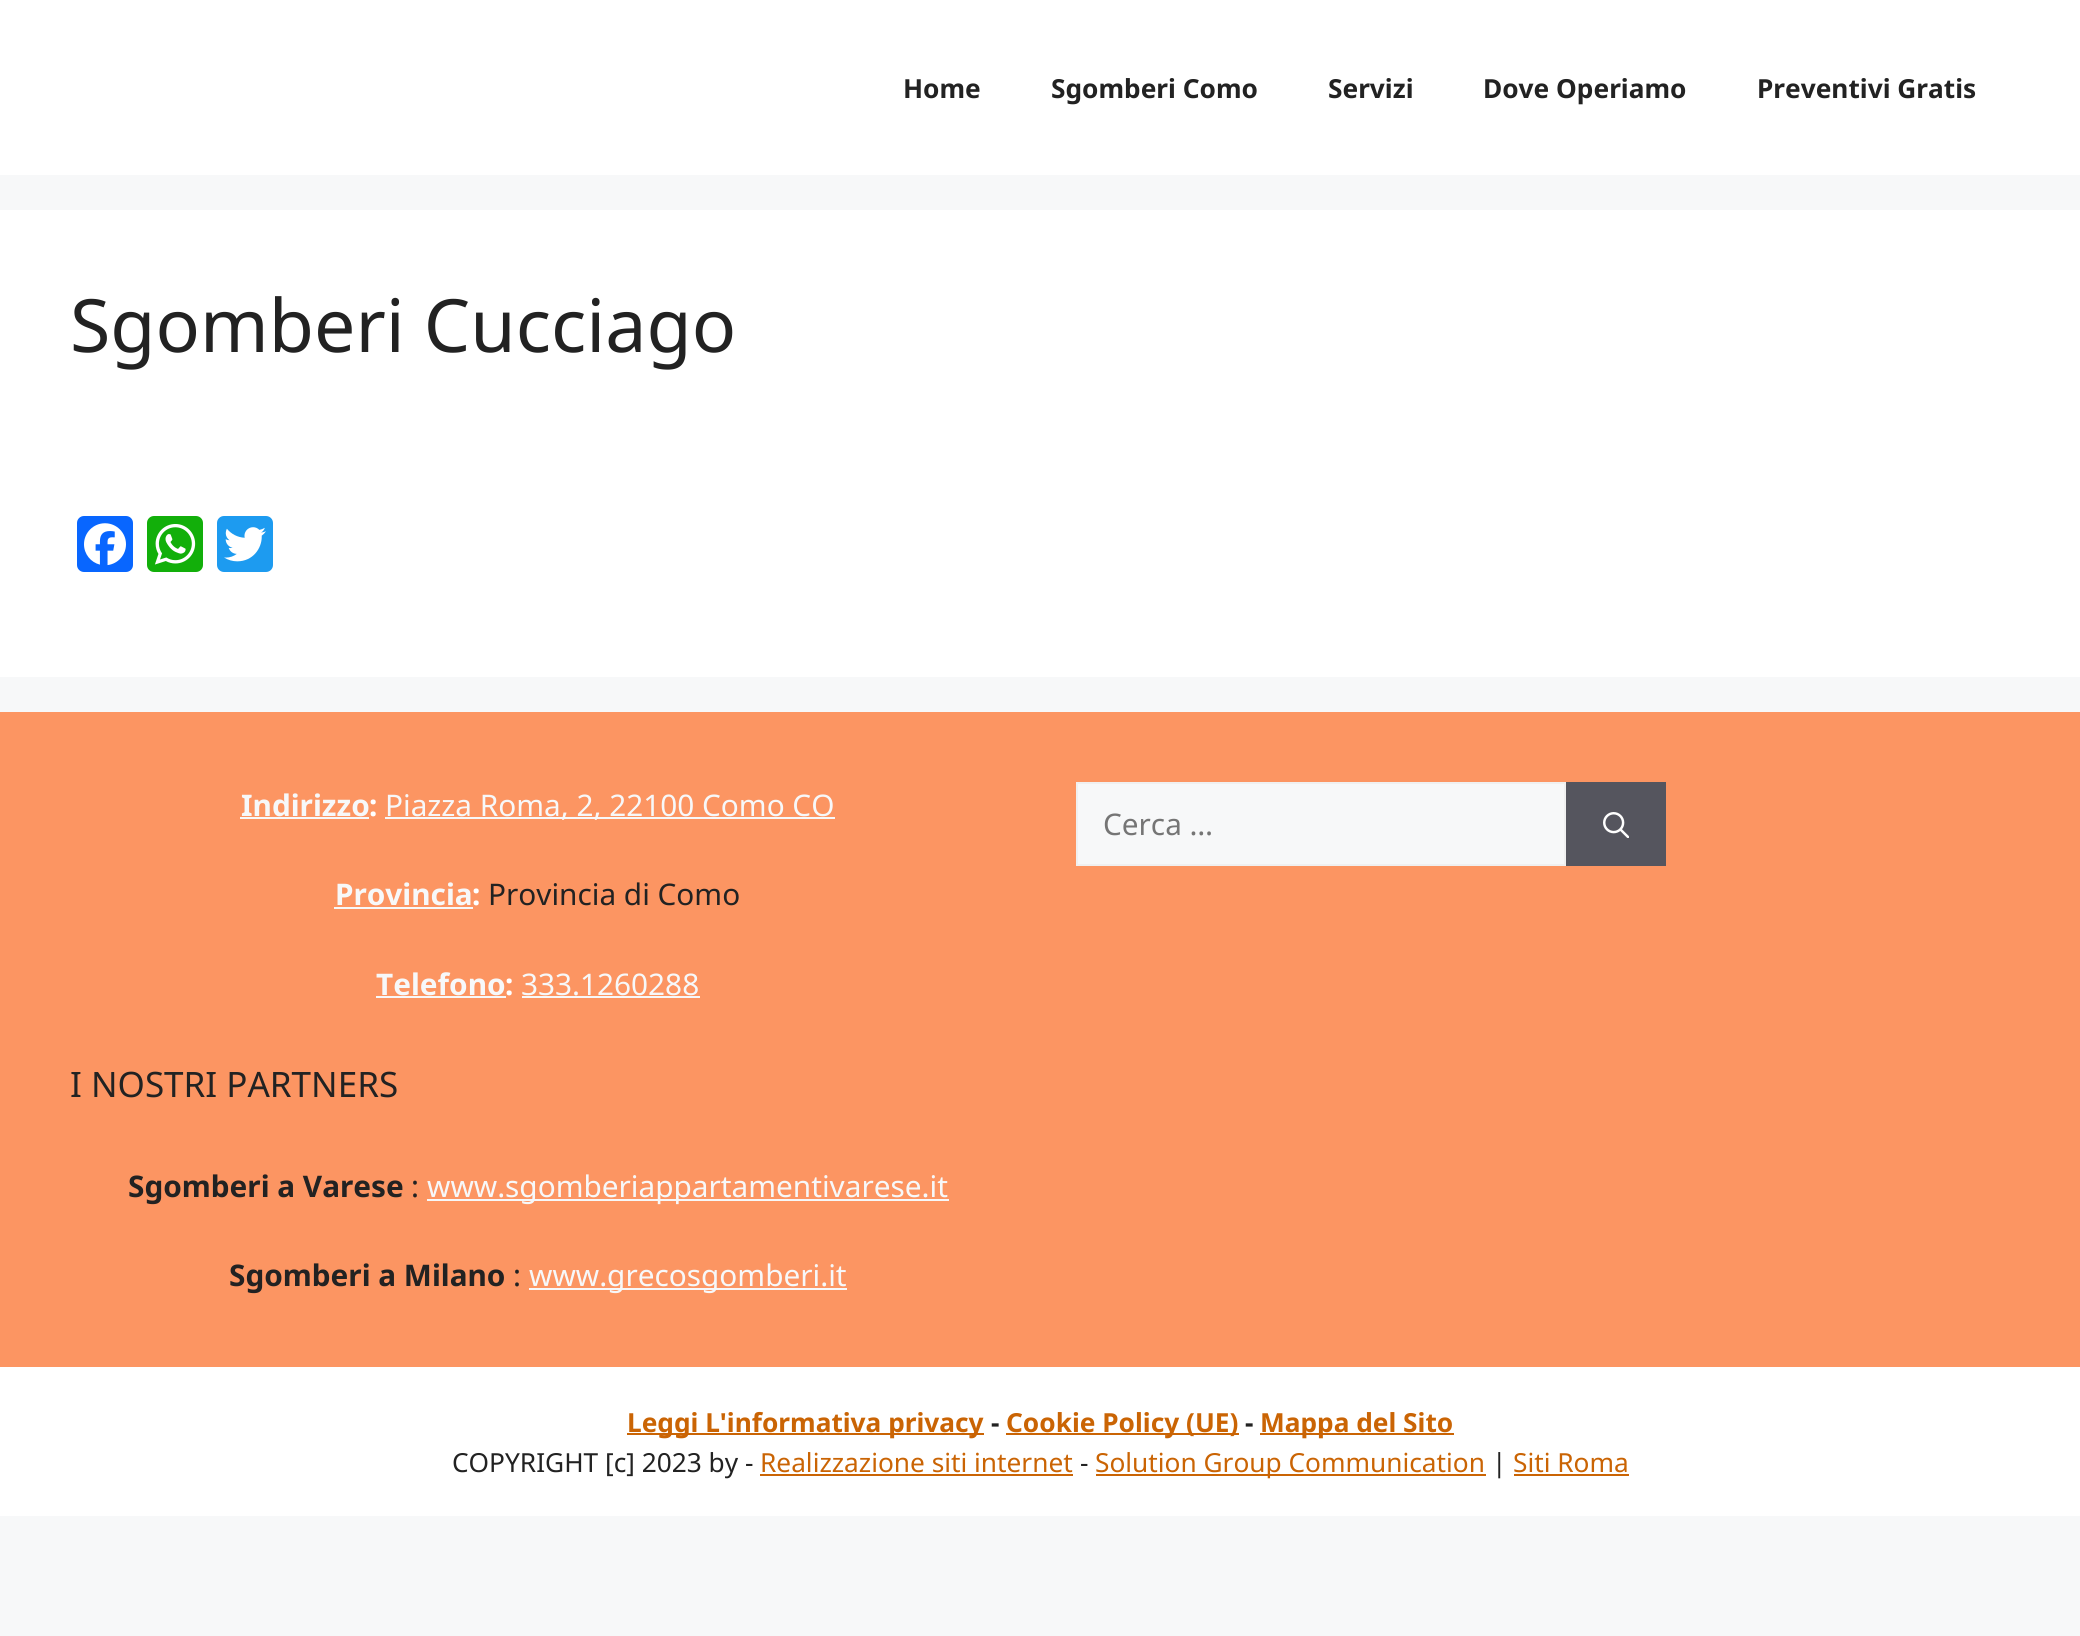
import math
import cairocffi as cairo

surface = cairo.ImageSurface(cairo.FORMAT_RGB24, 2080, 1636)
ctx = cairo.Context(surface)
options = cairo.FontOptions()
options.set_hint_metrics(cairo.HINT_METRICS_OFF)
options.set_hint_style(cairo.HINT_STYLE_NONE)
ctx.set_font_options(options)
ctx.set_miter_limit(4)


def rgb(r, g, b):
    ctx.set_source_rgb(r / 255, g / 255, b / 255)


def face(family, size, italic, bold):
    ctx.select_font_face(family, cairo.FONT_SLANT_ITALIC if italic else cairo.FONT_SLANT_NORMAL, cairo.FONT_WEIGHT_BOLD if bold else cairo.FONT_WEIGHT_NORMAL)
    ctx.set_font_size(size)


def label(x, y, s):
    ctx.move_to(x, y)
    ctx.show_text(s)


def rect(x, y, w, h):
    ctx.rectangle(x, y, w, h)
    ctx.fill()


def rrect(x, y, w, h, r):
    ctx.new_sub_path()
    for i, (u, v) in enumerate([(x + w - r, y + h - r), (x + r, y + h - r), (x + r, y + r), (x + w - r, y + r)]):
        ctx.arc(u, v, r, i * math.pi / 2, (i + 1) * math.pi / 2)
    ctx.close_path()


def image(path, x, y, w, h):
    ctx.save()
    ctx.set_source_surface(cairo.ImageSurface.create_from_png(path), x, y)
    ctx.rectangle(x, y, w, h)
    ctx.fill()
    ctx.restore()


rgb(247, 248, 249)
ctx.paint()
rgb(255, 255, 255)
rect(0, 0, 2080, 175)
face('Noto Sans', 26.25, 0, 1)
rgb(34, 34, 34)
label(903, 98, 'Home')
label(1051, 98, 'Sgomberi Como')
label(1328, 98, 'Servizi')
label(1483, 98, 'Dove Operiamo')
label(1757, 98, 'Preventivi Gratis')
rgb(255, 255, 255)
rect(0, 210, 2080, 467)
face('Noto Sans', 73.5, 0, 0)
rgb(34, 34, 34)
label(70, 352, 'Sgomberi Cucciago')
rgb(8, 102, 255)
rrect(77, 516, 56, 56, 7)
ctx.fill()
image('image0.png', 84, 523, 42, 43)
rgb(18, 175, 10)
rrect(147, 516, 56, 56, 7)
ctx.fill()
image('image1.png', 154, 524, 42, 41)
rgb(29, 155, 240)
rrect(217, 516, 56, 56, 7)
ctx.fill()
image('image2.png', 224, 527, 42, 35)
rgb(252, 149, 98)
rect(0, 712, 2080, 655)
face('Noto Sans', 29.75, 0, 1)
rgb(247, 248, 249)
label(241, 816, 'Indirizzo')
rgb(255, 255, 255)
label(369, 816, ':')
rgb(247, 248, 249)
rect(240, 817, 129, 2)
rect(385, 817, 450, 2)
face('Noto Sans', 29.75, 0, 0)
label(385, 816, 'Piazza Roma, 2, 22100 Como CO')
face('Noto Sans', 29.75, 0, 1)
label(335, 905, 'Provincia')
rgb(255, 255, 255)
label(472, 905, ':')
rgb(247, 248, 249)
rect(334, 907, 139, 2)
face('Noto Sans', 29.75, 0, 0)
rgb(34, 34, 34)
label(488, 905, 'Provincia di Como')
face('Noto Sans', 29.75, 0, 1)
rgb(247, 248, 249)
label(376, 995, 'Telefono')
rgb(255, 255, 255)
label(505, 995, ':')
rgb(247, 248, 249)
rect(376, 996, 130, 2)
face('Noto Sans', 29.75, 0, 0)
label(521, 995, '333.1260288')
rect(522, 996, 178, 2)
face('Noto Sans', 35, 0, 0)
rgb(34, 34, 34)
label(70, 1097, 'I NOSTRI PARTNERS')
face('Noto Sans', 29.75, 0, 1)
label(128, 1197, 'Sgomberi a Varese')
face('Noto Sans', 29.75, 0, 0)
label(411, 1197, ':')
rgb(247, 248, 249)
rect(427, 1199, 522, 2)
label(427, 1197, 'www.sgomberiappartamentivarese.it')
face('Noto Sans', 29.75, 0, 1)
rgb(34, 34, 34)
label(229, 1286, 'Sgomberi a Milano')
face('Noto Sans', 29.75, 0, 0)
label(513, 1286, ':')
rgb(247, 248, 249)
rect(529, 1288, 318, 2)
label(529, 1286, 'www.grecosgomberi.it')
ctx.rectangle(1077, 783, 488, 82)
ctx.fill_preserve()
rgb(240, 240, 240)
ctx.stroke()
rgb(117, 117, 117)
label(1103, 835, 'Cerca …')
rgb(85, 85, 94)
rect(1566, 782, 100, 84)
image('image3.png', 1603, 812, 26, 26)
rgb(255, 255, 255)
rect(0, 1367, 2080, 149)
rgb(202, 100, 4)
rect(627, 1433, 357, 2)
face('Noto Sans', 26.25, 0, 1)
label(627, 1432, 'Leggi L\'informativa privacy')
rgb(34, 34, 34)
label(991, 1432, '-')
rgb(202, 100, 4)
rect(1006, 1433, 233, 2)
label(1006, 1432, 'Cookie Policy (UE)')
rgb(34, 34, 34)
label(1245, 1432, '-')
rgb(202, 100, 4)
rect(1260, 1433, 194, 2)
label(1260, 1432, 'Mappa del Sito')
face('Noto Sans', 26.25, 0, 0)
rgb(34, 34, 34)
label(452, 1472, 'COPYRIGHT [c] 2023 by -')
rgb(202, 100, 4)
label(760, 1472, 'Realizzazione siti internet')
rect(760, 1474, 313, 2)
rgb(34, 34, 34)
label(1080, 1472, '-')
rgb(202, 100, 4)
rect(1096, 1474, 390, 2)
label(1095, 1472, 'Solution Group Communication')
rgb(34, 34, 34)
label(1492, 1472, '|')
rgb(202, 100, 4)
label(1513, 1472, 'Siti Roma')
rect(1514, 1474, 115, 2)
surface.write_to_png('render.png')
